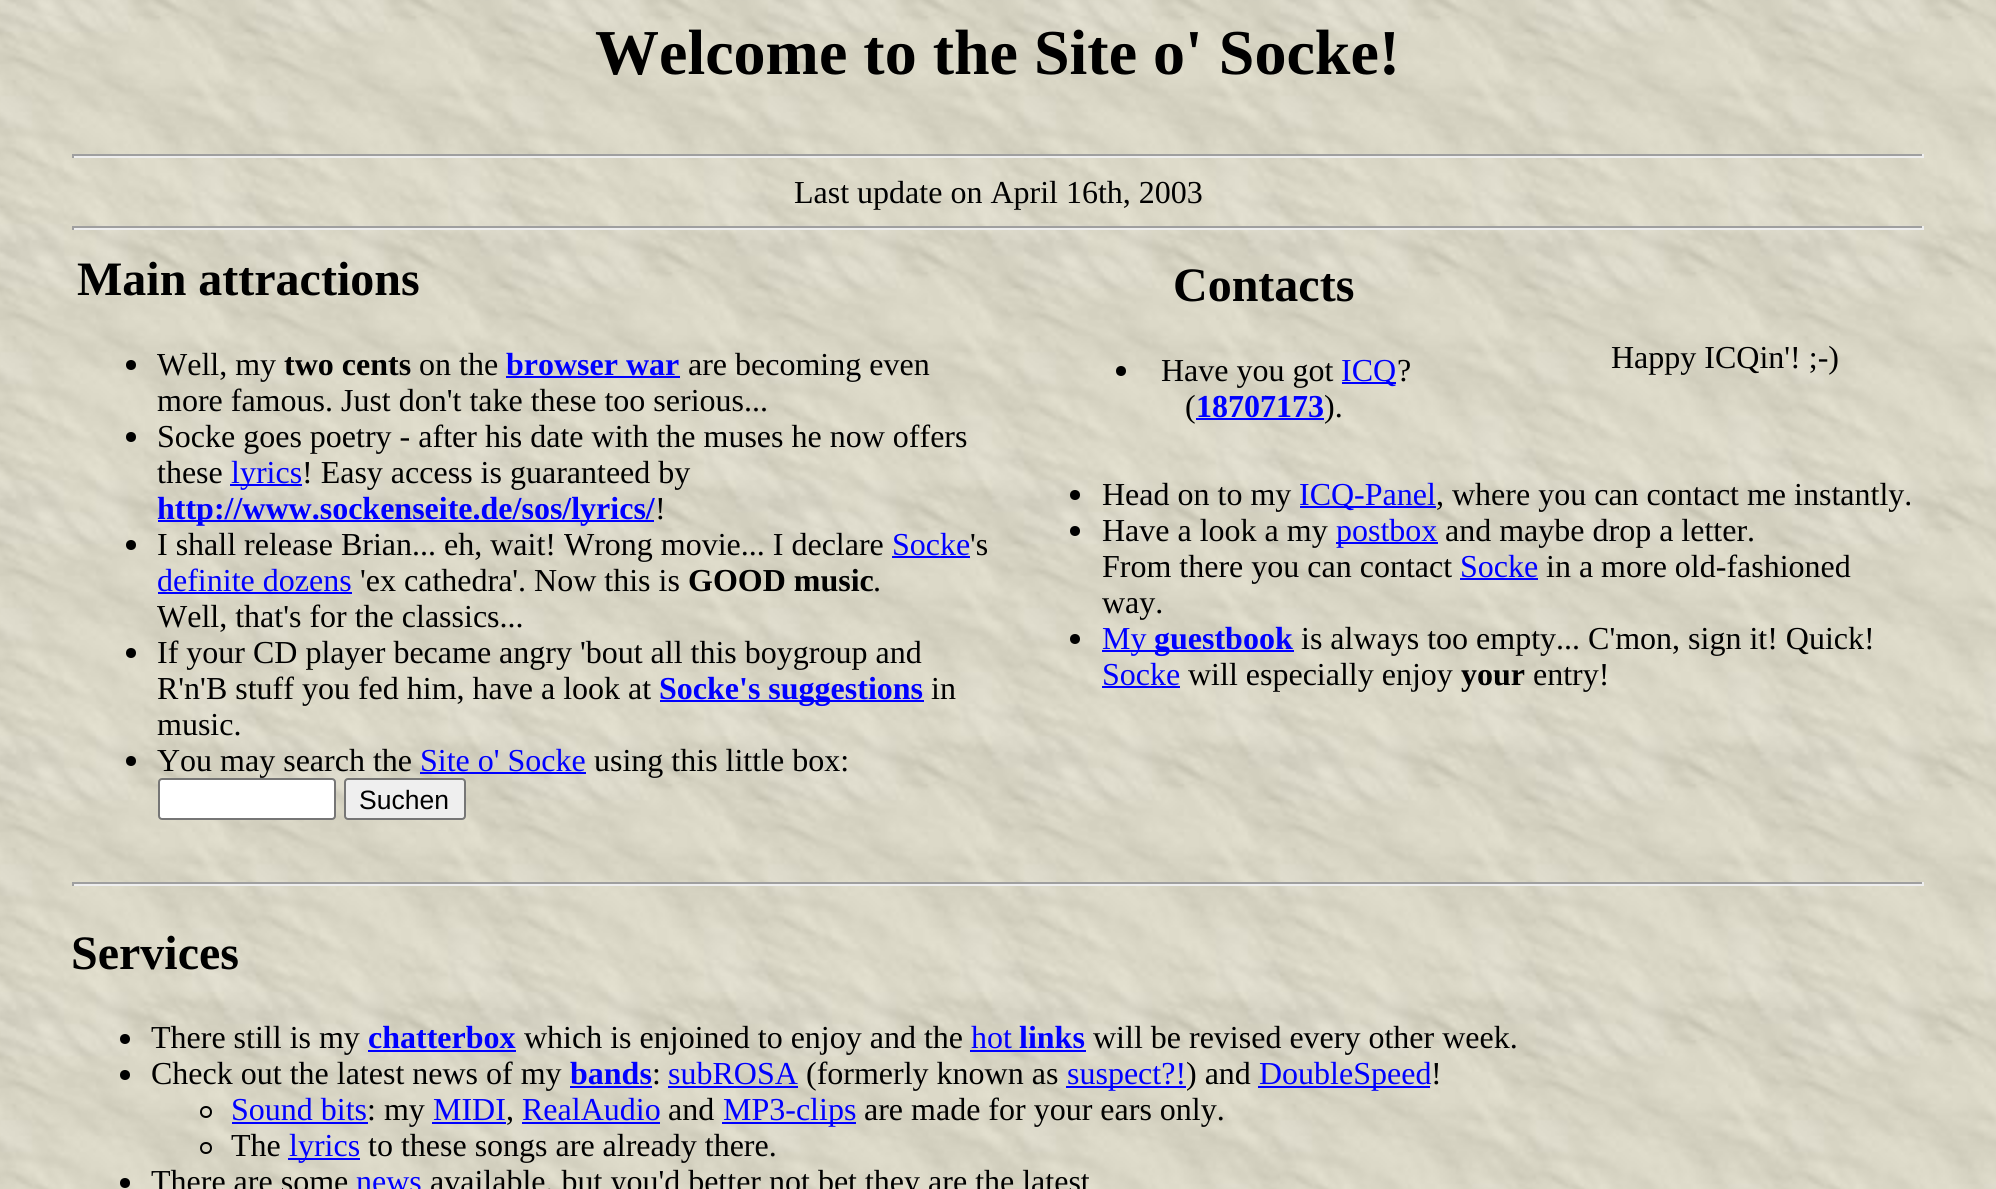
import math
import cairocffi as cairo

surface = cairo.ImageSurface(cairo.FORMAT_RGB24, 1996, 1189)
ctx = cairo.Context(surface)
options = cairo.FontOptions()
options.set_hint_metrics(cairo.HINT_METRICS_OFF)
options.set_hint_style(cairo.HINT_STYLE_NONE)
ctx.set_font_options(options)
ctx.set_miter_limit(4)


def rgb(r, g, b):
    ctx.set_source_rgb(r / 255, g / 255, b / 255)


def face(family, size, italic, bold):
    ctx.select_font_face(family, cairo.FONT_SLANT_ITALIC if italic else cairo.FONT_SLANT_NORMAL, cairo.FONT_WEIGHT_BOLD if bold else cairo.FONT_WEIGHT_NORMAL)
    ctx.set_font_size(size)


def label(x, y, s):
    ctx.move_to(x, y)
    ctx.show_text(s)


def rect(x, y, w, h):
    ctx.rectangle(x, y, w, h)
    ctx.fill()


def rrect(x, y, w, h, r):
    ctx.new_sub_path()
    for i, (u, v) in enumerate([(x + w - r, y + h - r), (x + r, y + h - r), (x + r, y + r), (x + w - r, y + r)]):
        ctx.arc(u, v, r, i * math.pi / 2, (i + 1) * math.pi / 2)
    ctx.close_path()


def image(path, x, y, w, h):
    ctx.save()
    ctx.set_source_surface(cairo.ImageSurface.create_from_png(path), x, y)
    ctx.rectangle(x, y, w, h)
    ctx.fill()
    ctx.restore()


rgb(255, 255, 255)
ctx.paint()
image('image0.png', 0, 0, 1996, 1189)
face('Liberation Serif', 64, 0, 1)
rgb(0, 0, 0)
label(595, 74, 'Welcome to the Site o\' Socke!')
rgb(159, 159, 159)
rect(72, 154, 1852, 2)
rgb(238, 238, 238)
rect(1922, 154, 2, 4)
rect(72, 156, 1852, 2)
rgb(159, 159, 159)
rect(72, 154, 2, 4)
face('Liberation Serif', 32, 0, 0)
rgb(0, 0, 0)
label(794, 203, 'Last update on April 16th, 2003')
rgb(159, 159, 159)
rect(72, 226, 1852, 2)
rgb(238, 238, 238)
rect(1922, 226, 2, 4)
rect(72, 228, 1852, 2)
rgb(159, 159, 159)
rect(72, 226, 2, 4)
face('Liberation Serif', 48, 0, 1)
rgb(0, 0, 0)
label(77, 295, 'Main attractions')
ctx.new_path()
ctx.arc(131, 365, 5, 0, 2 * math.pi)
ctx.fill()
face('Liberation Serif', 32, 0, 0)
label(157, 375, 'Well, my')
face('Liberation Serif', 32, 0, 1)
label(284, 375, 'two cents')
face('Liberation Serif', 32, 0, 0)
label(419, 375, 'on the')
face('Liberation Serif', 32, 0, 1)
rgb(0, 0, 255)
label(506, 375, 'browser war')
rect(506, 376, 174, 2)
face('Liberation Serif', 32, 0, 0)
rgb(0, 0, 0)
label(688, 375, 'are becoming even')
label(157, 411, 'more famous. Just don\'t take these too serious...')
ctx.new_path()
ctx.arc(131, 437, 5, 0, 2 * math.pi)
ctx.fill()
label(157, 447, 'Socke goes poetry - after his date with the muses he now offers')
label(157, 483, 'these')
rgb(0, 0, 255)
rect(230, 484, 72, 2)
label(231, 483, 'lyrics')
rgb(0, 0, 0)
label(302, 483, '! Easy access is guaranteed by')
rgb(0, 0, 255)
rect(158, 520, 496, 2)
face('Liberation Serif', 32, 0, 1)
label(157, 519, 'http://www.sockenseite.de/sos/lyrics/')
face('Liberation Serif', 32, 0, 0)
rgb(0, 0, 0)
label(655, 519, '!')
ctx.new_path()
ctx.arc(131, 545, 5, 0, 2 * math.pi)
ctx.fill()
label(157, 555, 'I shall release Brian... eh, wait! Wrong movie... I declare')
rgb(0, 0, 255)
label(892, 555, 'Socke')
rect(892, 556, 78, 2)
rgb(0, 0, 0)
label(970, 555, '\'s')
rgb(0, 0, 255)
label(157, 591, 'definite dozens')
rect(158, 592, 194, 2)
rgb(0, 0, 0)
label(360, 591, '\'ex cathedra\'. Now this is')
face('Liberation Serif', 32, 0, 1)
label(688, 591, 'GOOD music')
face('Liberation Serif', 32, 0, 0)
label(873, 591, '.')
label(157, 627, 'Well, that\'s for the classics...')
ctx.new_path()
ctx.arc(131, 653, 5, 0, 2 * math.pi)
ctx.fill()
label(157, 663, 'If your CD player became angry \'bout all this boygroup and')
label(157, 699, 'R\'n\'B stuff you fed him, have a look at')
rgb(0, 0, 255)
rect(660, 700, 264, 2)
face('Liberation Serif', 32, 0, 1)
label(659, 699, 'Socke\'s suggestions')
face('Liberation Serif', 32, 0, 0)
rgb(0, 0, 0)
label(931, 699, 'in')
label(157, 735, 'music.')
ctx.new_path()
ctx.arc(131, 761, 5, 0, 2 * math.pi)
ctx.fill()
label(157, 771, 'You may search the')
rgb(0, 0, 255)
label(420, 771, 'Site o\' Socke')
rect(420, 772, 166, 2)
rgb(0, 0, 0)
label(594, 771, 'using this little box:')
rgb(255, 255, 255)
rrect(159, 779, 176, 40, 3)
ctx.fill_preserve()
rgb(118, 118, 118)
ctx.stroke()
rgb(239, 239, 239)
rrect(345, 779, 120, 40, 3)
ctx.fill_preserve()
rgb(118, 118, 118)
ctx.stroke()
face('Liberation Sans', 26.5, 0, 0)
rgb(0, 0, 0)
label(359, 809, 'Suchen')
face('Liberation Serif', 48, 0, 1)
label(1173, 301, 'Contacts')
ctx.new_path()
ctx.arc(1121, 371, 5, 0, 2 * math.pi)
ctx.fill()
face('Liberation Serif', 32, 0, 0)
label(1161, 381, 'Have you got')
rgb(0, 0, 255)
rect(1342, 382, 54, 2)
label(1341, 381, 'ICQ')
rgb(0, 0, 0)
label(1397, 381, '?')
label(1185, 417, '(')
face('Liberation Serif', 32, 0, 1)
rgb(0, 0, 255)
label(1196, 417, '18707173')
rect(1196, 418, 128, 2)
face('Liberation Serif', 32, 0, 0)
rgb(0, 0, 0)
label(1324, 417, ').')
label(1611, 368, 'Happy ICQin\'! ;-)')
ctx.new_path()
ctx.arc(1075, 495, 5, 0, 2 * math.pi)
ctx.fill()
label(1102, 505, 'Head on to my')
rgb(0, 0, 255)
rect(1300, 506, 136, 2)
label(1299, 505, 'ICQ-Panel')
rgb(0, 0, 0)
label(1436, 505, ', where you can contact me instantly.')
ctx.new_path()
ctx.arc(1075, 531, 5, 0, 2 * math.pi)
ctx.fill()
label(1102, 541, 'Have a look a my')
rgb(0, 0, 255)
rect(1336, 542, 102, 2)
label(1336, 541, 'postbox')
rgb(0, 0, 0)
label(1445, 541, 'and maybe drop a letter.')
label(1102, 577, 'From there you can contact')
rgb(0, 0, 255)
label(1460, 577, 'Socke')
rect(1460, 578, 78, 2)
rgb(0, 0, 0)
label(1546, 577, 'in a more old-fashioned')
label(1102, 613, 'way.')
ctx.new_path()
ctx.arc(1075, 639, 5, 0, 2 * math.pi)
ctx.fill()
rgb(0, 0, 255)
rect(1102, 650, 192, 2)
label(1102, 649, 'My')
face('Liberation Serif', 32, 0, 1)
label(1154, 649, 'guestbook')
face('Liberation Serif', 32, 0, 0)
rgb(0, 0, 0)
label(1301, 649, 'is always too empty... C\'mon, sign it! Quick!')
rgb(0, 0, 255)
label(1102, 685, 'Socke')
rect(1102, 686, 78, 2)
rgb(0, 0, 0)
label(1188, 685, 'will especially enjoy')
face('Liberation Serif', 32, 0, 1)
label(1461, 685, 'your')
face('Liberation Serif', 32, 0, 0)
label(1533, 685, 'entry!')
rgb(159, 159, 159)
rect(72, 882, 1852, 2)
rgb(238, 238, 238)
rect(1922, 882, 2, 4)
rect(72, 884, 1852, 2)
rgb(159, 159, 159)
rect(72, 882, 2, 4)
face('Liberation Serif', 48, 0, 1)
rgb(0, 0, 0)
label(71, 969, 'Services')
ctx.new_path()
ctx.arc(125, 1039, 5, 0, 2 * math.pi)
ctx.fill()
face('Liberation Serif', 32, 0, 0)
label(151, 1048, 'There still is my')
face('Liberation Serif', 32, 0, 1)
rgb(0, 0, 255)
label(368, 1048, 'chatterbox')
rect(368, 1050, 148, 2)
face('Liberation Serif', 32, 0, 0)
rgb(0, 0, 0)
label(524, 1048, 'which is enjoined to enjoy and the')
rgb(0, 0, 255)
label(971, 1048, 'hot')
rect(970, 1050, 116, 2)
face('Liberation Serif', 32, 0, 1)
label(1019, 1048, 'links')
face('Liberation Serif', 32, 0, 0)
rgb(0, 0, 0)
label(1093, 1048, 'will be revised every other week.')
ctx.new_path()
ctx.arc(125, 1075, 5, 0, 2 * math.pi)
ctx.fill()
label(151, 1084, 'Check out the latest news of my')
face('Liberation Serif', 32, 0, 1)
rgb(0, 0, 255)
label(570, 1084, 'bands')
rect(570, 1086, 82, 2)
face('Liberation Serif', 32, 0, 0)
rgb(0, 0, 0)
label(652, 1084, ':')
rgb(0, 0, 255)
label(668, 1084, 'subROSA')
rect(668, 1086, 130, 2)
rgb(0, 0, 0)
label(806, 1084, '(formerly known as')
rgb(0, 0, 255)
rect(1066, 1086, 120, 2)
label(1067, 1084, 'suspect?!')
rgb(0, 0, 0)
label(1186, 1084, ') and')
rgb(0, 0, 255)
rect(1258, 1086, 172, 2)
label(1259, 1084, 'DoubleSpeed')
rgb(0, 0, 0)
label(1431, 1084, '!')
ctx.new_path()
ctx.arc(206, 1112, 5, 0, 2 * math.pi)
ctx.stroke()
rgb(0, 0, 255)
label(231, 1120, 'Sound bits')
rect(232, 1122, 136, 2)
rgb(0, 0, 0)
label(367, 1120, ': my')
rgb(0, 0, 255)
label(433, 1120, 'MIDI')
rect(432, 1122, 74, 2)
label(522, 1120, 'RealAudio')
rect(522, 1122, 138, 2)
rgb(0, 0, 0)
label(668, 1120, 'and')
rgb(0, 0, 255)
rect(722, 1122, 134, 2)
label(723, 1120, 'MP3-clips')
rgb(0, 0, 0)
label(864, 1120, 'are made for your ears only.')
label(506, 1120, ',')
ctx.new_path()
ctx.arc(206, 1148, 5, 0, 2 * math.pi)
ctx.stroke()
label(231, 1156, 'The')
rgb(0, 0, 255)
rect(288, 1158, 72, 2)
label(289, 1156, 'lyrics')
rgb(0, 0, 0)
label(368, 1156, 'to these songs are already there.')
ctx.new_path()
ctx.arc(125, 1183, 5, 0, 2 * math.pi)
ctx.fill()
label(151, 1192, 'There are some')
rgb(0, 0, 255)
label(356, 1192, 'news')
rgb(0, 0, 0)
label(430, 1192, 'available, but you\'d better not bet they are the latest')
surface.write_to_png('render.png')
